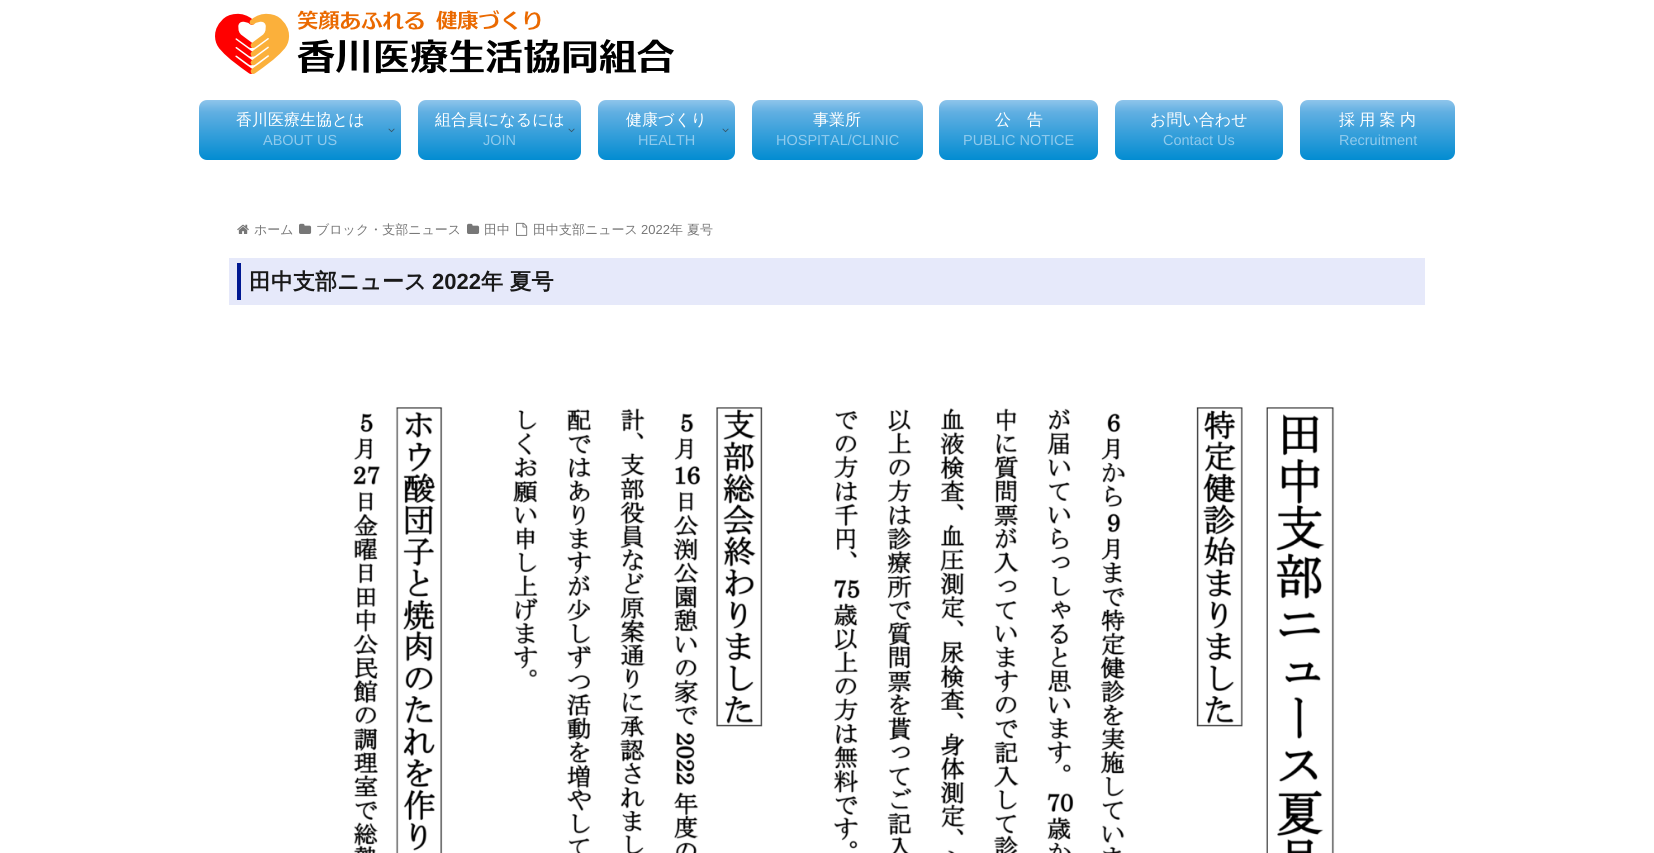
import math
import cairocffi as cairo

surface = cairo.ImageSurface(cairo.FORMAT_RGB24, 1654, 853)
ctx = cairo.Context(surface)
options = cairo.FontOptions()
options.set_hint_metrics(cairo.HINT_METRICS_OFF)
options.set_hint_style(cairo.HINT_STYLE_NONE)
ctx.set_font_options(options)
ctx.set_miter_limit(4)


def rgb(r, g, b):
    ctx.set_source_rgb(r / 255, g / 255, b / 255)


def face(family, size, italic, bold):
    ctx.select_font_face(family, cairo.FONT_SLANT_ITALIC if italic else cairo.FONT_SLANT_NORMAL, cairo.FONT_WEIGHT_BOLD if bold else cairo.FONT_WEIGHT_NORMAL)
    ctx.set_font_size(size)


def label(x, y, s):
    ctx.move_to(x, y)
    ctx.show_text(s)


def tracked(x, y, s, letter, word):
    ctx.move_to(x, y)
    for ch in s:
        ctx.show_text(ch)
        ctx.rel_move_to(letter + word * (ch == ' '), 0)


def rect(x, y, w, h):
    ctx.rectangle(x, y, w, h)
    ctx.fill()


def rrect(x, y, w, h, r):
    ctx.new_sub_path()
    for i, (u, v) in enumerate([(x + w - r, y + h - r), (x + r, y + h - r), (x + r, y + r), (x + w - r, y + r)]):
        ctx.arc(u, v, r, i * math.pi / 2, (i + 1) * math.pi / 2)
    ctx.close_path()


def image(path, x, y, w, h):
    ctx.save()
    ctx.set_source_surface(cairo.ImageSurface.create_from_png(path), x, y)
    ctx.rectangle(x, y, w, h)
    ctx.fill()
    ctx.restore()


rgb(255, 255, 255)
ctx.paint()
image('image0.png', 215, 10, 459, 64)
gradient = cairo.LinearGradient(300, 100, 300, 160)
gradient.add_color_stop_rgba(0, 0.561, 0.773, 0.922, 1)
gradient.add_color_stop_rgba(0.2, 0.38, 0.686, 0.886, 1)
gradient.add_color_stop_rgba(1, 0.008, 0.549, 0.82, 1)
ctx.set_source(gradient)
rrect(199, 100, 202, 60, 8)
ctx.fill()
face('WenQuanYi Zen Hei Medium', 16, 0, 0)
rgb(255, 255, 255)
label(236, 125, '香川医療生協とは')
face('Liberation Sans', 14.5, 0, 0)
rgb(143, 202, 236)
label(263, 145, 'ABOUT US')
image('image1.png', 388, 128, 7, 5)
gradient = cairo.LinearGradient(500, 100, 500, 160)
gradient.add_color_stop_rgba(0, 0.561, 0.773, 0.922, 1)
gradient.add_color_stop_rgba(0.2, 0.38, 0.686, 0.886, 1)
gradient.add_color_stop_rgba(1, 0.008, 0.549, 0.82, 1)
ctx.set_source(gradient)
rrect(418, 100, 163, 60, 8)
ctx.fill()
face('WenQuanYi Zen Hei Medium', 16, 0, 0)
rgb(255, 255, 255)
label(435, 125, '組合員になるには')
face('Liberation Sans', 14.5, 0, 0)
rgb(143, 202, 236)
label(483, 145, 'JOIN')
image('image1.png', 568, 128, 7, 5)
gradient = cairo.LinearGradient(667, 100, 667, 160)
gradient.add_color_stop_rgba(0, 0.561, 0.773, 0.922, 1)
gradient.add_color_stop_rgba(0.2, 0.38, 0.686, 0.886, 1)
gradient.add_color_stop_rgba(1, 0.008, 0.549, 0.82, 1)
ctx.set_source(gradient)
rrect(598, 100, 137, 60, 8)
ctx.fill()
face('WenQuanYi Zen Hei Medium', 16, 0, 0)
rgb(255, 255, 255)
label(626, 125, '健康づくり')
face('Liberation Sans', 14.5, 0, 0)
rgb(143, 202, 236)
label(638, 145, 'HEALTH')
image('image1.png', 722, 128, 7, 5)
gradient = cairo.LinearGradient(838, 100, 838, 160)
gradient.add_color_stop_rgba(0, 0.561, 0.773, 0.922, 1)
gradient.add_color_stop_rgba(0.2, 0.38, 0.686, 0.886, 1)
gradient.add_color_stop_rgba(1, 0.008, 0.549, 0.82, 1)
ctx.set_source(gradient)
rrect(752, 100, 171, 60, 8)
ctx.fill()
face('WenQuanYi Zen Hei Medium', 16, 0, 0)
rgb(255, 255, 255)
label(813, 125, '事業所')
face('Liberation Sans', 14.5, 0, 0)
rgb(143, 202, 236)
label(776, 145, 'HOSPITAL/CLINIC')
gradient = cairo.LinearGradient(1019, 100, 1019, 160)
gradient.add_color_stop_rgba(0, 0.561, 0.773, 0.922, 1)
gradient.add_color_stop_rgba(0.2, 0.38, 0.686, 0.886, 1)
gradient.add_color_stop_rgba(1, 0.008, 0.549, 0.82, 1)
ctx.set_source(gradient)
rrect(939, 100, 159, 60, 8)
ctx.fill()
face('WenQuanYi Zen Hei Medium', 16, 0, 0)
rgb(255, 255, 255)
label(995, 125, '公　告')
face('Liberation Sans', 14.5, 0, 0)
rgb(143, 202, 236)
label(963, 145, 'PUBLIC NOTICE')
gradient = cairo.LinearGradient(1199, 100, 1199, 160)
gradient.add_color_stop_rgba(0, 0.561, 0.773, 0.922, 1)
gradient.add_color_stop_rgba(0.2, 0.38, 0.686, 0.886, 1)
gradient.add_color_stop_rgba(1, 0.008, 0.549, 0.82, 1)
ctx.set_source(gradient)
rrect(1115, 100, 168, 60, 8)
ctx.fill()
face('WenQuanYi Zen Hei Medium', 16, 0, 0)
rgb(255, 255, 255)
label(1150, 125, 'お問い合わせ')
face('Liberation Sans', 14.5, 0, 0)
rgb(143, 202, 236)
label(1163, 145, 'Contact Us')
gradient = cairo.LinearGradient(1378, 100, 1378, 160)
gradient.add_color_stop_rgba(0, 0.561, 0.773, 0.922, 1)
gradient.add_color_stop_rgba(0.2, 0.38, 0.686, 0.886, 1)
gradient.add_color_stop_rgba(1, 0.008, 0.549, 0.82, 1)
ctx.set_source(gradient)
rrect(1300, 100, 155, 60, 8)
ctx.fill()
face('WenQuanYi Zen Hei Medium', 16, 0, 0)
rgb(255, 255, 255)
tracked(1339, 125, '採 用 案 内', 0, -0.5)
face('Liberation Sans', 14.5, 0, 0)
rgb(143, 202, 236)
label(1339, 145, 'Recruitment')
image('image2.png', 237, 224, 12, 10)
face('WenQuanYi Zen Hei Medium', 13, 0, 0)
rgb(119, 119, 119)
label(254, 234, 'ホーム')
image('image3.png', 299, 223, 13, 11)
label(316, 234, 'ブロック・支部ニュース')
image('image3.png', 467, 223, 13, 11)
label(484, 234, '田中')
image('image4.png', 516, 222, 12, 14)
label(533, 234, '田中支部ニュース')
face('Liberation Sans', 13, 0, 0)
label(641, 234, '2022')
face('WenQuanYi Zen Hei Medium', 13, 0, 0)
label(670, 234, '年 夏号')
rgb(230, 233, 250)
rect(229, 258, 1196, 47)
rgb(0, 24, 146)
rect(237, 263, 4, 37)
face('WenQuanYi Zen Hei', 22, 0, 1)
rgb(25, 25, 25)
label(249, 289, '田中支部ニュース')
face('Liberation Sans', 22, 0, 1)
label(432, 289, '2022')
face('WenQuanYi Zen Hei', 22, 0, 1)
label(481, 289, '年 夏号')
image('image5.png', 353, 407, 982, 446)
surface.write_to_png('render.png')
